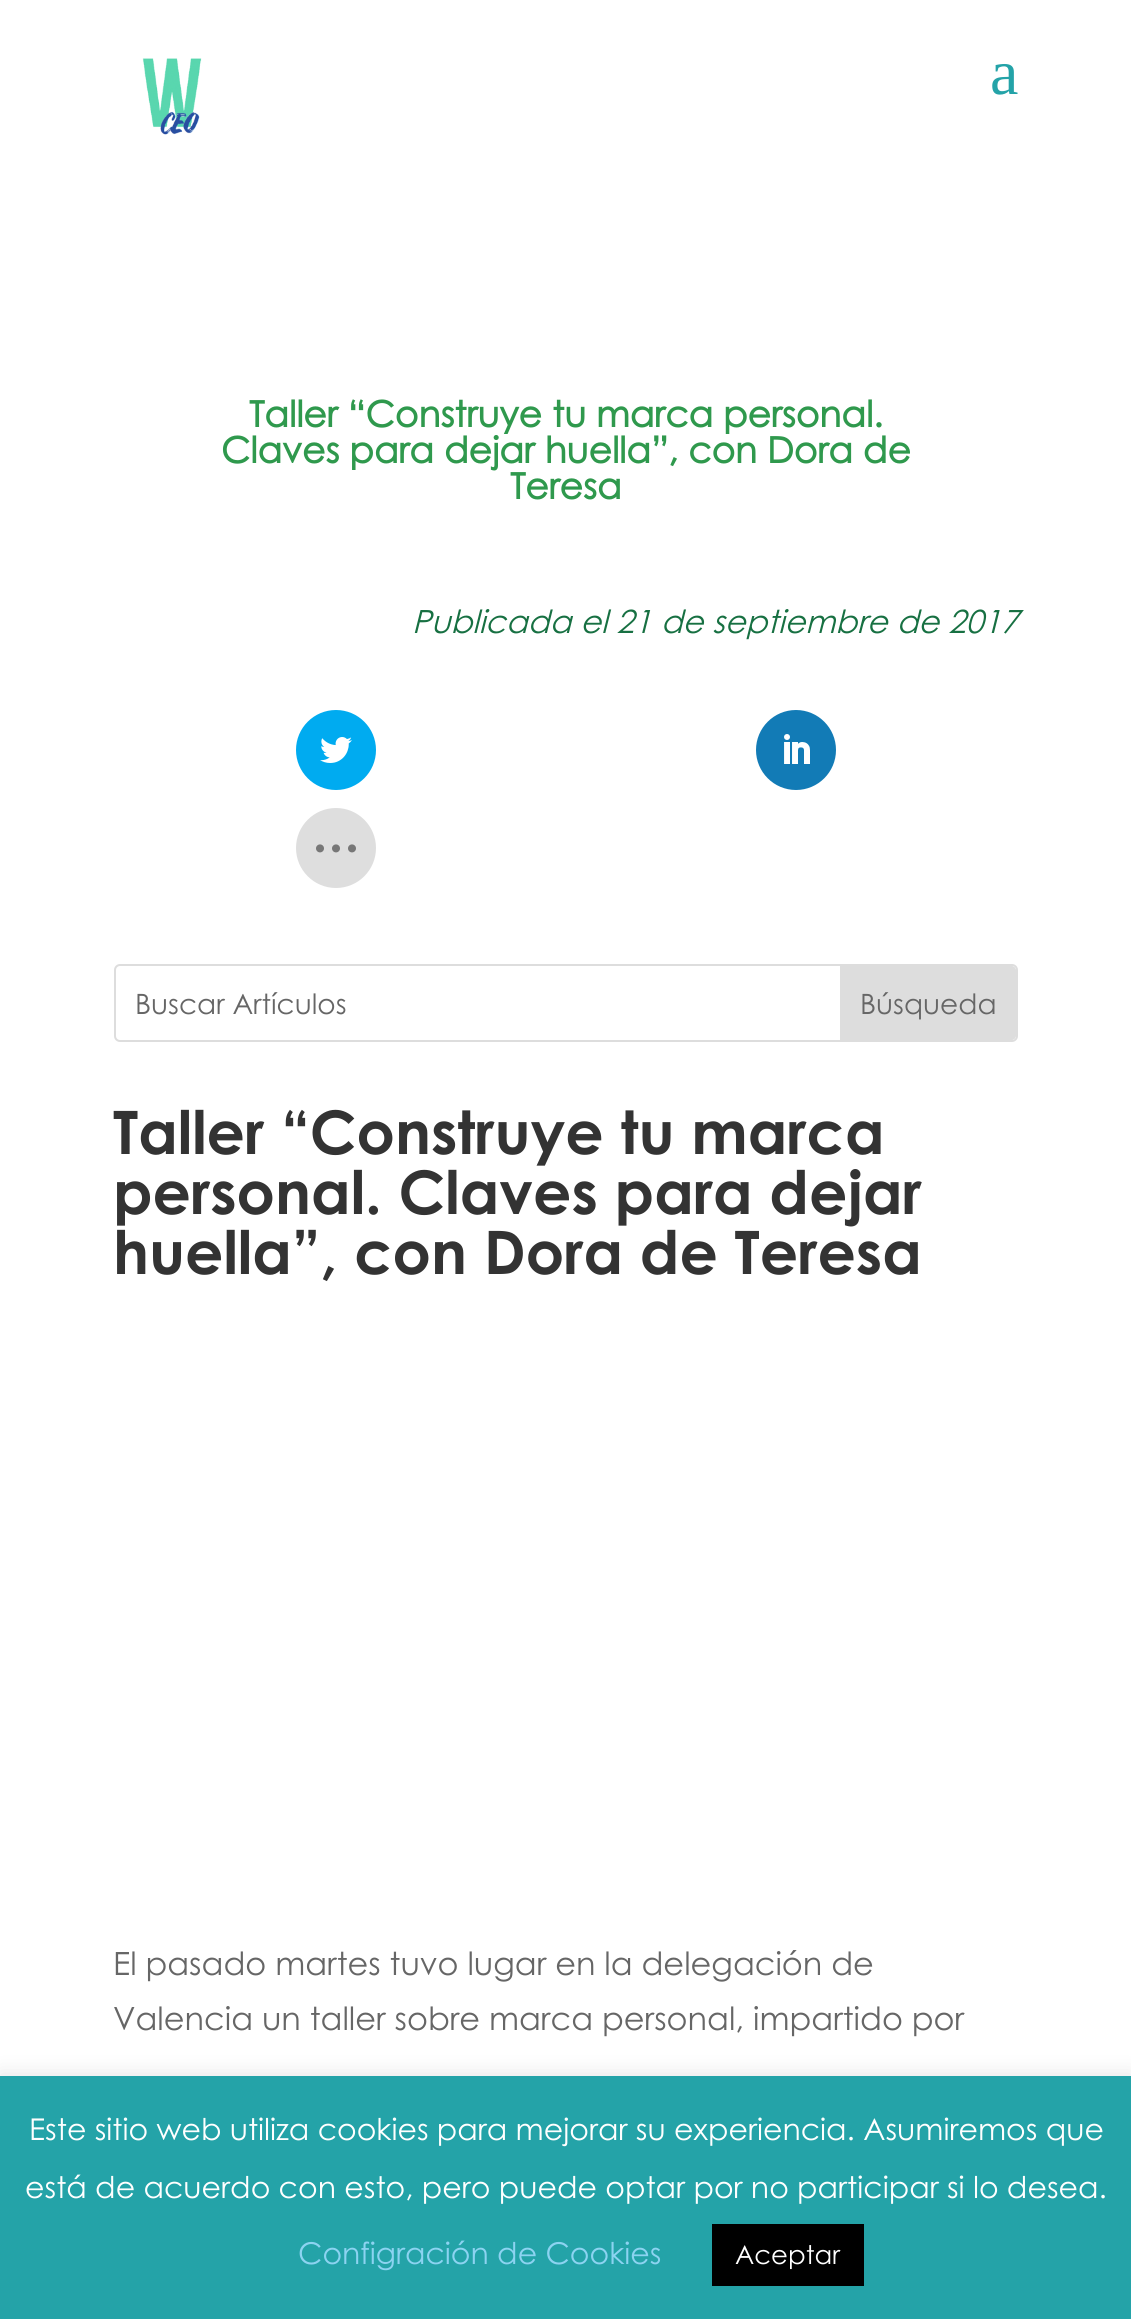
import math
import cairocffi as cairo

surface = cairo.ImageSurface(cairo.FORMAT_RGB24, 1131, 2319)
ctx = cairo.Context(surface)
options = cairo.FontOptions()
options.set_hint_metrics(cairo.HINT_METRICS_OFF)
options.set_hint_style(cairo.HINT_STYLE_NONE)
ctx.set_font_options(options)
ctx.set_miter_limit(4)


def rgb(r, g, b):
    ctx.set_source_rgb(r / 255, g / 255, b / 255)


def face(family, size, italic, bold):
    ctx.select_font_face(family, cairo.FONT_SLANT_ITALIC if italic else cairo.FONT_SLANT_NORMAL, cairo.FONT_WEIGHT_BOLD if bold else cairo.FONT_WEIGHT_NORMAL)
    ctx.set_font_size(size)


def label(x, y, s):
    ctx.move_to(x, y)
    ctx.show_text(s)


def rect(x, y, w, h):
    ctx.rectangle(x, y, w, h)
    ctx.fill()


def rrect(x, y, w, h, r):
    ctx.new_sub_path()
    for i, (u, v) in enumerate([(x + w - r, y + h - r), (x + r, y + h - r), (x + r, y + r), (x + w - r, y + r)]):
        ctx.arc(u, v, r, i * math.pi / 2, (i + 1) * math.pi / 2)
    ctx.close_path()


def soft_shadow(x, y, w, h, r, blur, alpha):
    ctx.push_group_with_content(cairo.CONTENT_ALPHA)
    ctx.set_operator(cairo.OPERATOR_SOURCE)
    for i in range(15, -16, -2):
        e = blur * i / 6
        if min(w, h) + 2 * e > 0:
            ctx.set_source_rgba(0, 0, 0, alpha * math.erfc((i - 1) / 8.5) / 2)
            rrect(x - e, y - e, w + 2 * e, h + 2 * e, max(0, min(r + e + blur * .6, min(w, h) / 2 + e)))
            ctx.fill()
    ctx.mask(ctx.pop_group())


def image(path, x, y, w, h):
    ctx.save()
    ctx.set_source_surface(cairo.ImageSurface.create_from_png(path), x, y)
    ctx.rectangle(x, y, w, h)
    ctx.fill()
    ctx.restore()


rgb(255, 255, 255)
ctx.paint()
image('image0.png', 142, 58, 60, 77)
face('Liberation Serif', 64, 0, 0)
rgb(36, 163, 168)
label(990, 94, 'a')
face('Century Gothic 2', 36, 0, 1)
rgb(47, 153, 77)
label(249, 427, 'Taller “Construye tu marca personal.')
label(221, 463, 'Claves para dejar huella”, con Dora de')
label(510, 499, 'Teresa')
face('Century Gothic', 32, 1, 0)
rgb(23, 112, 66)
label(412, 633, 'Publicada el 21 de septiembre de 2017')
rgb(0, 171, 240)
ctx.new_path()
ctx.arc(336, 750, 40, 0, 2 * math.pi)
ctx.fill()
image('image1.png', 320, 737, 32, 26)
rgb(18, 123, 182)
ctx.arc(796, 750, 40, 0, 2 * math.pi)
ctx.fill()
image('image2.png', 784, 734, 26, 30)
rgb(222, 222, 222)
ctx.arc(336, 848, 40, 0, 2 * math.pi)
ctx.fill()
image('image3.png', 316, 844, 40, 9)
rrect(115, 965, 902, 76, 5)
rgb(221, 221, 221)
ctx.stroke()
face('Century Gothic', 28, 0, 0)
rgb(102, 102, 102)
label(135, 1014, 'Buscar Artículos')
rgb(221, 221, 221)
ctx.new_path()
ctx.move_to(840, 966)
ctx.line_to(1012, 966)
ctx.curve_to(1014, 966, 1016, 968, 1016, 970)
ctx.line_to(1016, 1036)
ctx.curve_to(1016, 1038, 1014, 1040, 1012, 1040)
ctx.line_to(840, 1040)
ctx.close_path()
ctx.fill()
rgb(102, 102, 102)
label(860, 1014, 'Búsqueda')
face('Century Gothic', 60, 0, 1)
rgb(51, 51, 51)
label(113, 1154, 'Taller “Construye tu marca')
label(113, 1214, 'personal. Claves para dejar')
label(113, 1274, 'huella”, con Dora de Teresa')
face('Century Gothic', 32, 0, 0)
rgb(102, 102, 102)
label(113, 1975, 'El pasado martes tuvo lugar en la delegación de')
label(113, 2030, 'Valencia un taller sobre marca personal, impartido por')
rgb(172, 171, 171)
soft_shadow(0, 2074, 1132, 244, 0, 10, 0.3)
rgb(36, 163, 168)
rect(0, 2076, 1131, 243)
face('Century Gothic', 30, 0, 0)
rgb(255, 255, 255)
label(29, 2140, 'Este sitio web utiliza cookies para mejorar su experiencia. Asumiremos que')
label(25, 2198, 'está de acuerdo con esto, pero puede optar por no participar si lo desea.')
rgb(140, 211, 241)
label(298, 2264, 'Configración de Cookies')
rgb(0, 0, 0)
rect(712, 2224, 152, 62)
face('Century Gothic', 26, 0, 0)
rgb(255, 255, 255)
label(735, 2264, 'Aceptar')
surface.write_to_png('render.png')
